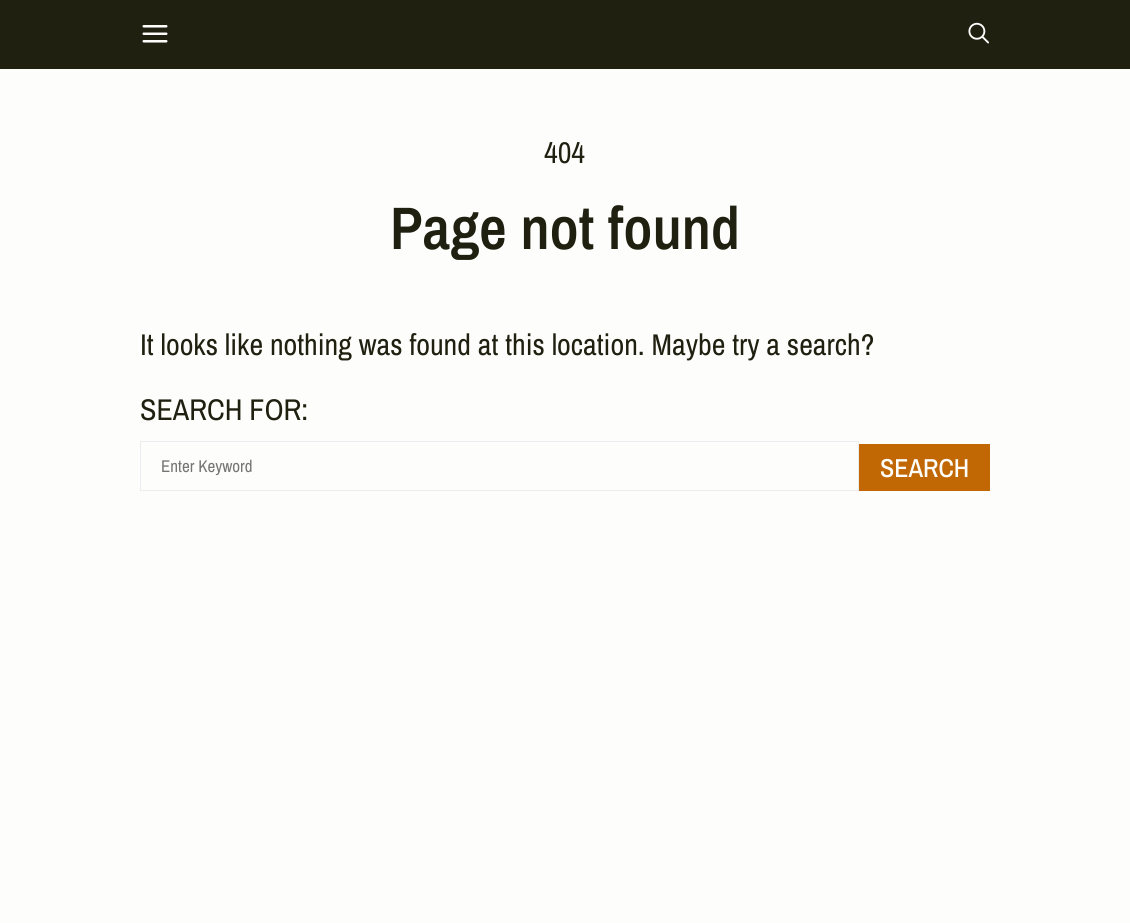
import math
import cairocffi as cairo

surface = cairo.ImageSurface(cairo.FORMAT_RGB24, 1130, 923)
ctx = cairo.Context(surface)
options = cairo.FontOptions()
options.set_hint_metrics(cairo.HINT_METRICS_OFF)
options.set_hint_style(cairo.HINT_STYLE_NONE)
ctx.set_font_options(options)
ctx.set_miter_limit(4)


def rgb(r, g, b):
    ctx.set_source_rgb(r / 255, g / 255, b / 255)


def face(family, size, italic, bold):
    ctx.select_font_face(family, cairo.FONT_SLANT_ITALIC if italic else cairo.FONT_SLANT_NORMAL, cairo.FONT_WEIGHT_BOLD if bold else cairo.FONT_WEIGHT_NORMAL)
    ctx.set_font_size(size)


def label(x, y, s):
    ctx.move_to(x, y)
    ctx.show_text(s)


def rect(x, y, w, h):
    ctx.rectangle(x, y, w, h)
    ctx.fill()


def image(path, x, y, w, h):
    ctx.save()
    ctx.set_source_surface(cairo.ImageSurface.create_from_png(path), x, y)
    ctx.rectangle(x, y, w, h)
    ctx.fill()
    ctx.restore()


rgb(253, 253, 251)
ctx.paint()
rgb(32, 32, 17)
rect(0, 0, 1130, 69)
image('image0.png', 142, 25, 26, 18)
image('image1.png', 968, 22, 21, 22)
face('Archivo Narrow', 30, 0, 0)
label(544, 163, '404')
face('Archivo Narrow SemiBold', 60, 0, 0)
label(390, 249, 'Page not found')
face('Archivo Narrow', 30, 0, 0)
label(140, 355, 'It looks like nothing was found at this location. Maybe try a search?')
label(140, 420, 'SEARCH FOR:')
ctx.rectangle(140.5, 441.5, 718, 49)
rgb(236, 235, 239)
ctx.set_line_width(1)
ctx.stroke()
face('Archivo Narrow', 17, 0, 0)
rgb(117, 117, 117)
label(161, 472, 'Enter Keyword')
rgb(193, 104, 4)
rect(859, 444, 131, 47)
face('Archivo Narrow Medium', 26, 0, 0)
rgb(253, 253, 251)
label(880, 477, 'SEARCH')
surface.write_to_png('render.png')
